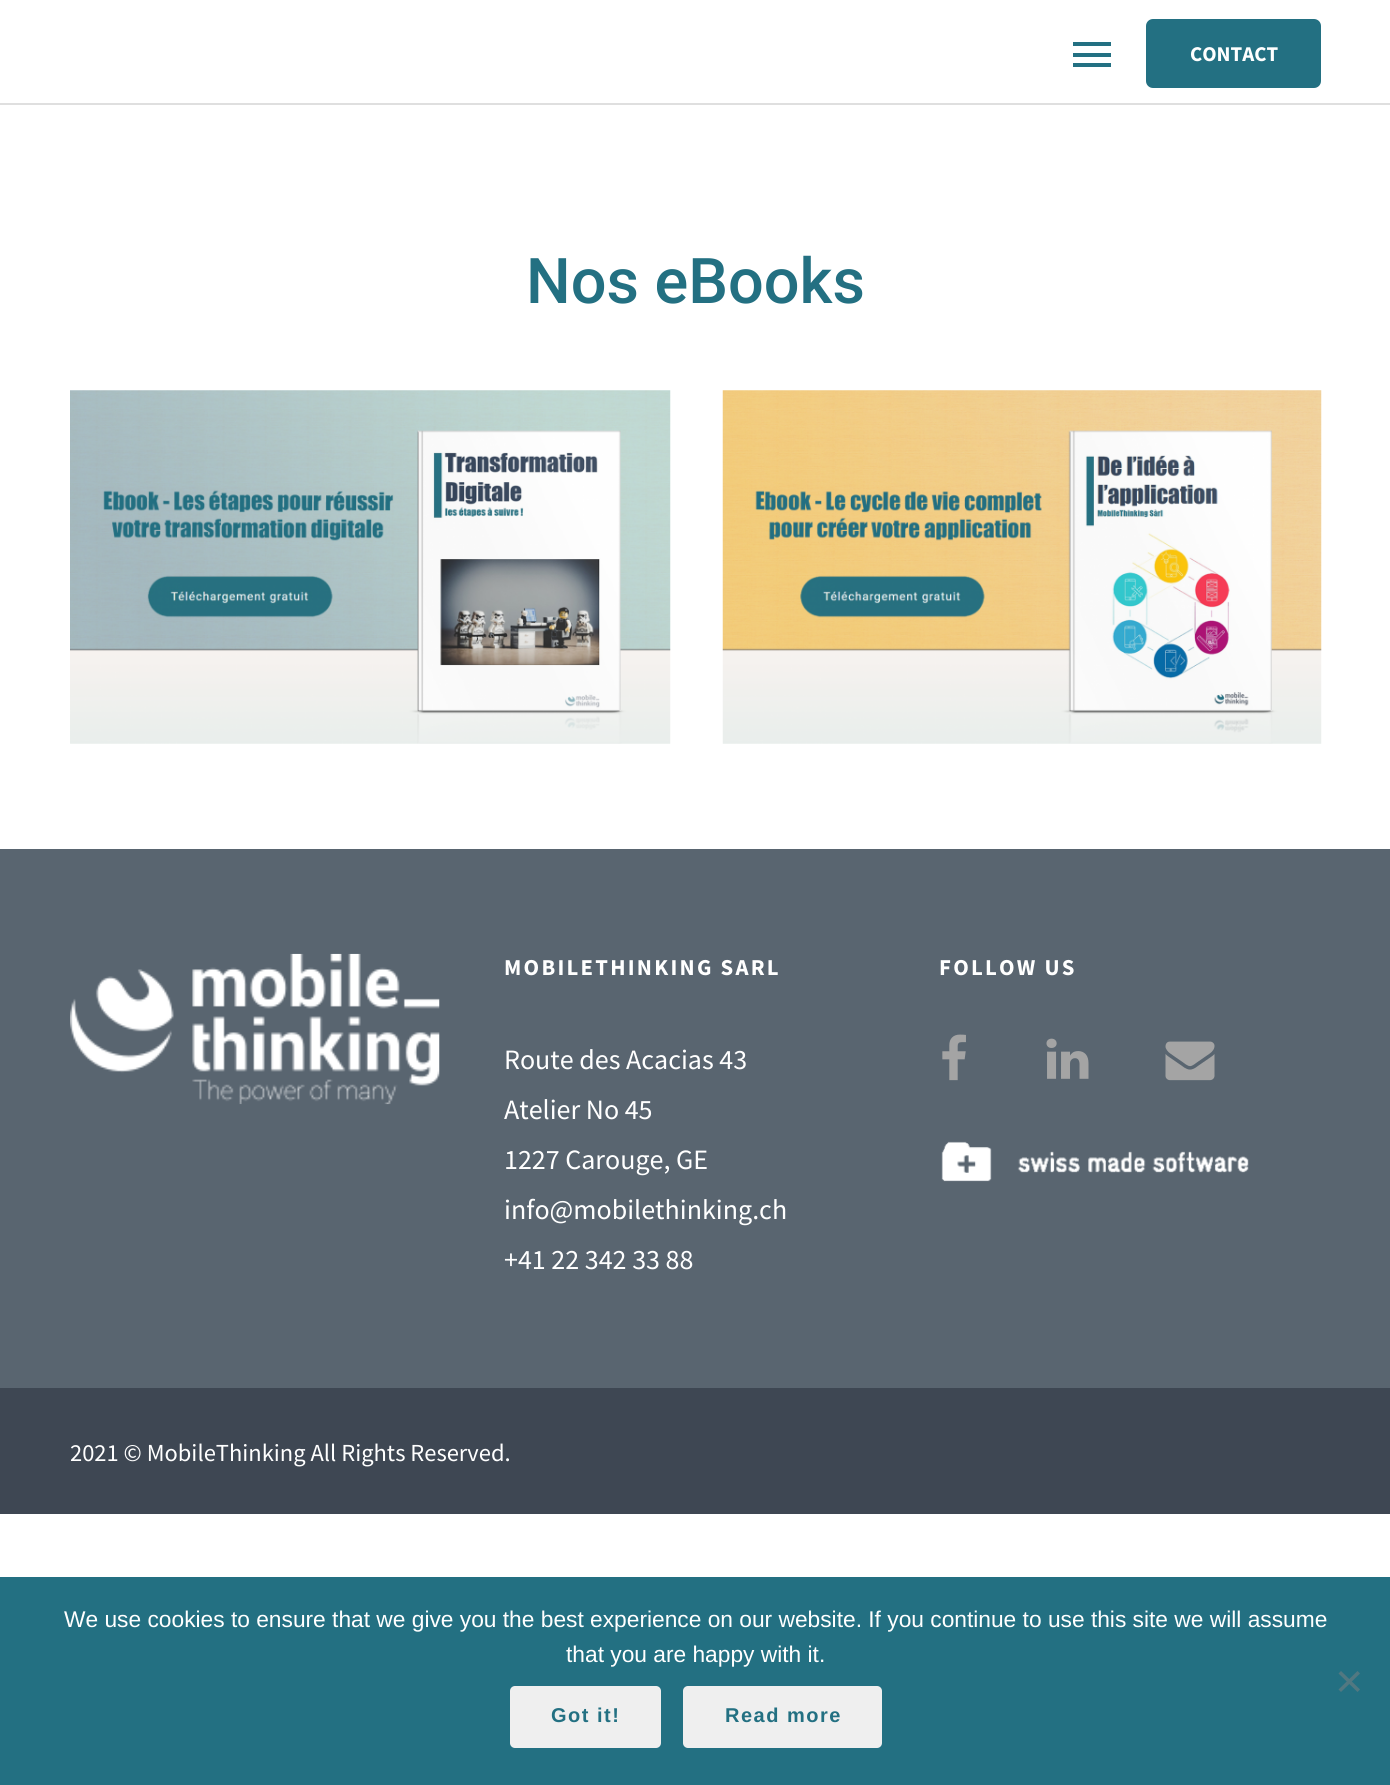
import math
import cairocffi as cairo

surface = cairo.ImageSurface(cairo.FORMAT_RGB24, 1390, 1785)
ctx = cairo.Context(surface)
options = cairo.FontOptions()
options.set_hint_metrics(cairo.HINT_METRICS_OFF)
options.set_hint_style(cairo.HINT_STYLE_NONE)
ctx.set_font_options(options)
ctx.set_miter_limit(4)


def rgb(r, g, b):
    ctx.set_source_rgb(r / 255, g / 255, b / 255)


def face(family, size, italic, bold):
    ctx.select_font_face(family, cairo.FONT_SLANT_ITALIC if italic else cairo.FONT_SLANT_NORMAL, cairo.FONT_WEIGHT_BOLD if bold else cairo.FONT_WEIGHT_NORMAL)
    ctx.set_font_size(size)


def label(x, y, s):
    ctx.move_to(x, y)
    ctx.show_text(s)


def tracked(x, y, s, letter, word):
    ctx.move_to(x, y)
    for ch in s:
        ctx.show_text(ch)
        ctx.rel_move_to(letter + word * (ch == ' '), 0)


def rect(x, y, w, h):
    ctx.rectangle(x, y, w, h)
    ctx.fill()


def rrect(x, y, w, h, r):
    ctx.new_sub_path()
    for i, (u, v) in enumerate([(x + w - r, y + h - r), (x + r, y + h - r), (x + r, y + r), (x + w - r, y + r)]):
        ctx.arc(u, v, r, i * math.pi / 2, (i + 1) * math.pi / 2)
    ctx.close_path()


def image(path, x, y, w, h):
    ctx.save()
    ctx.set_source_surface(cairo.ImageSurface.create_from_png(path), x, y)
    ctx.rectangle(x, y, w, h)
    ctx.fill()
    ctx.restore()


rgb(255, 255, 255)
ctx.paint()
rgb(223, 223, 223)
rect(0, 103, 1390, 2)
rgb(35, 112, 130)
rect(1073, 53, 38, 4)
rect(1073, 42, 38, 4)
rect(1073, 63, 38, 4)
rrect(1147, 20, 173, 67, 6)
ctx.fill_preserve()
ctx.stroke()
face('Source Sans Pro', 21, 0, 1)
rgb(255, 255, 255)
label(1190, 61, 'CONTACT')
face('Roboto Medium', 63, 0, 0)
rgb(35, 112, 130)
label(526, 303, 'Nos eBooks')
image('image0.png', 70, 390, 601, 354)
image('image1.png', 722, 390, 600, 354)
rgb(89, 101, 112)
rect(0, 849, 1390, 539)
image('image2.png', 70, 953, 370, 152)
face('Source Sans Pro', 22.75, 0, 1)
rgb(255, 255, 255)
tracked(504, 975, 'MOBILETHINKING SARL', 2.25, 0)
face('Source Sans Pro', 28, 0, 0)
label(504, 1069, 'Route des Acacias 43')
label(504, 1119, 'Atelier No 45')
label(504, 1169, '1227 Carouge, GE')
label(504, 1219, 'info@mobilethinking.ch')
label(504, 1269, '+41 22 342 33 88')
face('Source Sans Pro', 22.75, 0, 1)
tracked(939, 975, 'FOLLOW US', 2.25, 0)
image('image3.png', 942, 1034, 24, 47)
image('image4.png', 1046, 1038, 43, 41)
image('image5.png', 1165, 1041, 50, 40)
image('image6.png', 941, 1141, 308, 41)
rgb(62, 71, 83)
rect(0, 1388, 1390, 126)
face('Source Sans Pro', 24.5, 0, 0)
rgb(255, 255, 255)
label(70, 1461, '2021 © MobileThinking All Rights Reserved.')
rgb(35, 112, 130)
rect(0, 1577, 1390, 208)
face('Liberation Sans', 22.75, 0, 0)
rgb(255, 255, 255)
label(64, 1627, 'We use cookies to ensure that we give you the best experience on our website. If you continue to use this site we will assume')
label(566, 1662, 'that you are happy with it.')
rgb(82, 120, 129)
ctx.new_path()
ctx.move_to(1357.5, 1671)
ctx.line_to(1360, 1673.5)
ctx.line_to(1341, 1692)
ctx.line_to(1338.5, 1689.5)
ctx.close_path()
ctx.fill()
ctx.new_path()
ctx.move_to(1338.5, 1673.5)
ctx.line_to(1341, 1671)
ctx.line_to(1360, 1689.5)
ctx.line_to(1357.5, 1692)
ctx.close_path()
ctx.fill()
rgb(239, 239, 239)
rrect(509, 1685, 153, 64, 6)
ctx.fill_preserve()
rgb(35, 112, 130)
ctx.stroke()
face('Liberation Sans', 20, 0, 1)
tracked(551, 1722, 'Got it!', 1.5, 0)
rgb(239, 239, 239)
rrect(682, 1685, 201, 64, 6)
ctx.fill_preserve()
rgb(35, 112, 130)
ctx.stroke()
tracked(725, 1722, 'Read more', 1.5, 0)
surface.write_to_png('render.png')
